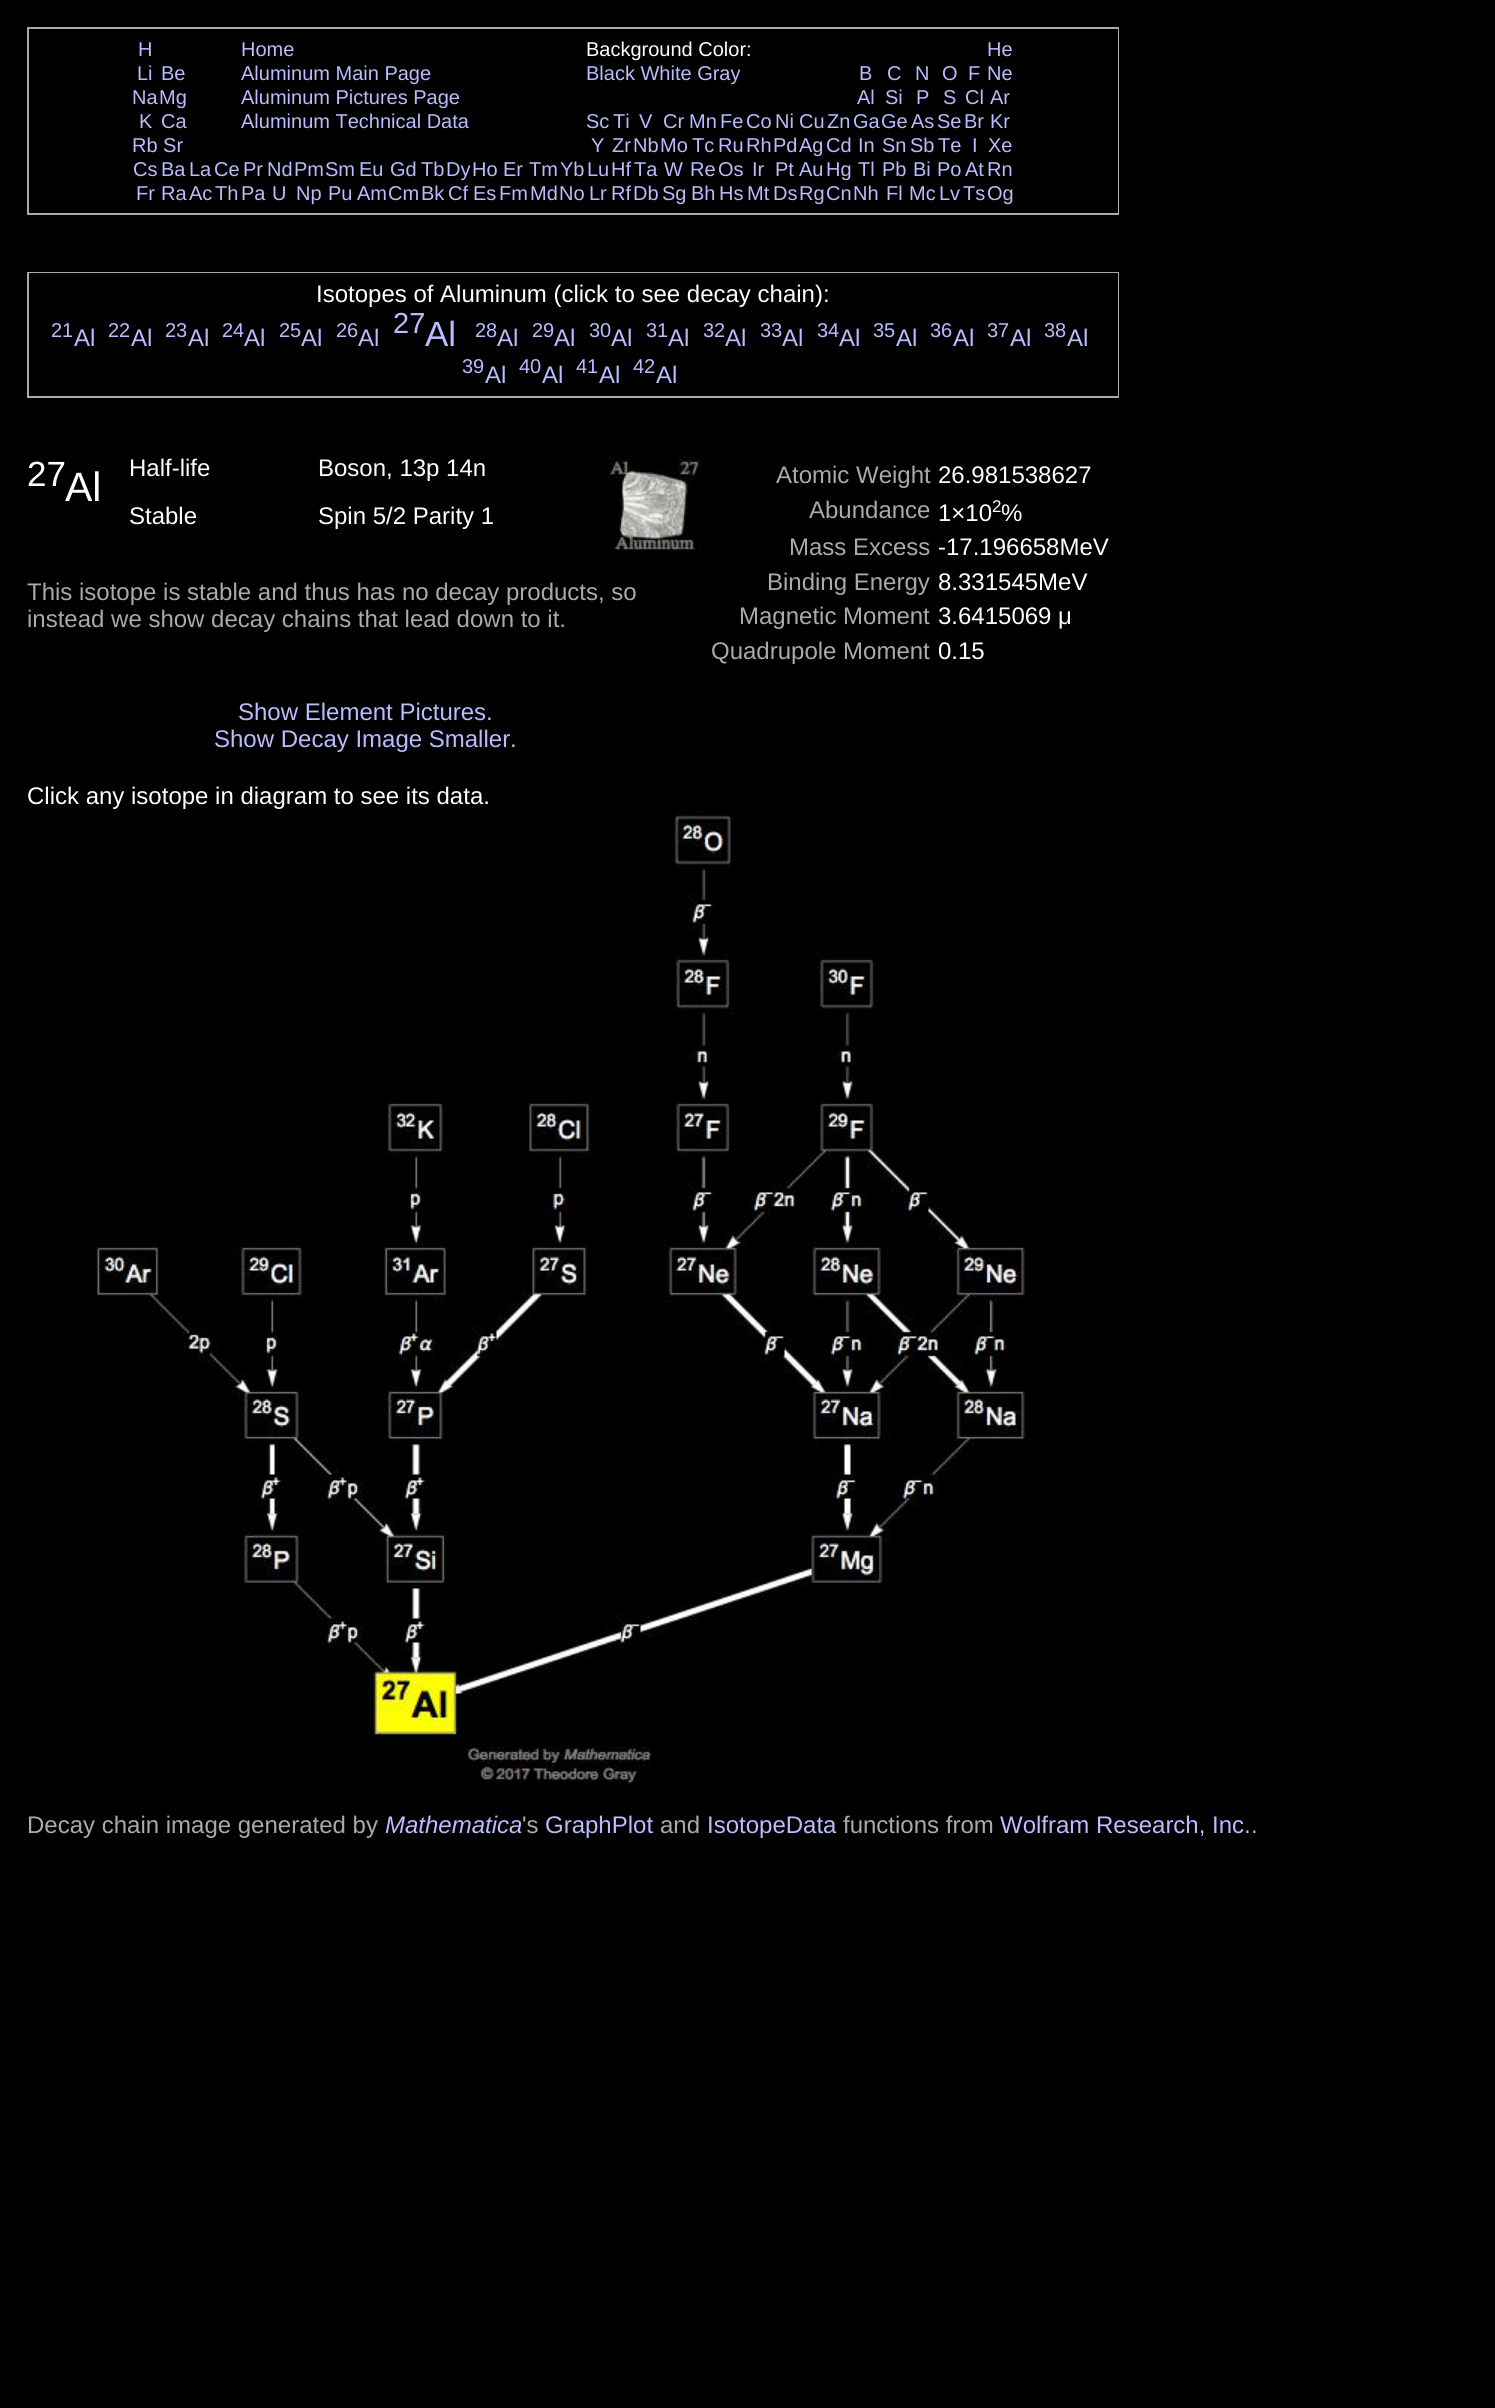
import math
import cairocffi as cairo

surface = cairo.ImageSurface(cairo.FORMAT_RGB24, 1495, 2408)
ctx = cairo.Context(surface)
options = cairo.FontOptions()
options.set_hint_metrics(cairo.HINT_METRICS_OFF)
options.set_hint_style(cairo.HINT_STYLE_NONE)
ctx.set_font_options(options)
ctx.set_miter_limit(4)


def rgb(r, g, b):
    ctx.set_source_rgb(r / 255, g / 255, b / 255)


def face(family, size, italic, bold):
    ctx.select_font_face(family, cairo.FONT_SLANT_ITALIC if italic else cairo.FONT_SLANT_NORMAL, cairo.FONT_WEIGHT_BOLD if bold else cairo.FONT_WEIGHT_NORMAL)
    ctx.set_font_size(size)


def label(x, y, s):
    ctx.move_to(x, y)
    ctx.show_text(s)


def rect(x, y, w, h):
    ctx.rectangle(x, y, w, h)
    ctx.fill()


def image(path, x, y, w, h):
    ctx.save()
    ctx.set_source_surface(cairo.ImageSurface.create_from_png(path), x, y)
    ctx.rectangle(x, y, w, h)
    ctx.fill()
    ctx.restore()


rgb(0, 0, 0)
ctx.paint()
rgb(170, 170, 170)
rect(27, 27, 1092, 188)
rgb(0, 0, 0)
rect(29, 29, 1089, 184)
face('Liberation Sans', 20, 0, 0)
rgb(187, 187, 255)
label(138, 56, 'H')
label(241, 56, 'Home')
rgb(255, 255, 255)
label(586, 56, 'Background Color:')
rgb(187, 187, 255)
label(987, 56, 'He')
label(137, 80, 'Li')
label(161, 80, 'Be')
label(241, 80, 'Aluminum Main Page')
label(586, 80, 'Black White Gray')
label(859, 80, 'B')
label(887, 80, 'C')
label(915, 80, 'N')
label(942, 80, 'O')
label(968, 80, 'F')
label(987, 80, 'Ne')
label(132, 104, 'Na')
label(159, 104, 'Mg')
label(241, 104, 'Aluminum Pictures Page')
label(857, 104, 'Al')
label(885, 104, 'Si')
label(916, 104, 'P')
label(943, 104, 'S')
label(965, 104, 'Cl')
label(990, 104, 'Ar')
label(139, 128, 'K')
label(161, 128, 'Ca')
label(241, 128, 'Aluminum Technical Data')
label(586, 128, 'Sc')
label(613, 128, 'Ti')
label(639, 128, 'V')
label(663, 128, 'Cr')
label(689, 128, 'Mn')
label(720, 128, 'Fe')
label(746, 128, 'Co')
label(775, 128, 'Ni')
label(799, 128, 'Cu')
label(827, 128, 'Zn')
label(853, 128, 'Ga')
label(881, 128, 'Ge')
label(911, 128, 'As')
label(937, 128, 'Se')
label(964, 128, 'Br')
label(990, 128, 'Kr')
label(132, 152, 'Rb Sr')
label(591, 152, 'Y')
label(612, 152, 'Zr')
label(633, 152, 'Nb')
label(660, 152, 'Mo')
label(692, 152, 'Tc')
label(718, 152, 'Ru')
label(746, 152, 'Rh')
label(773, 152, 'Pd')
label(799, 152, 'Ag')
label(826, 152, 'Cd')
label(858, 152, 'In')
label(882, 152, 'Sn')
label(910, 152, 'Sb')
label(938, 152, 'Te')
label(972, 152, 'I')
label(988, 152, 'Xe')
label(133, 176, 'Cs')
label(161, 176, 'Ba')
label(189, 176, 'La')
label(214, 176, 'Ce')
label(243, 176, 'Pr')
label(267, 176, 'Nd')
label(294, 176, 'Pm')
label(325, 176, 'Sm')
label(359, 176, 'Eu')
label(390, 176, 'Gd')
label(421, 176, 'Tb')
label(446, 176, 'Dy')
label(472, 176, 'Ho')
label(503, 176, 'Er')
label(529, 176, 'Tm')
label(560, 176, 'Yb')
label(587, 176, 'Lu')
label(611, 176, 'Hf')
label(634, 176, 'Ta')
label(664, 176, 'W')
label(690, 176, 'Re')
label(718, 176, 'Os')
label(752, 176, 'Ir')
label(775, 176, 'Pt')
label(799, 176, 'Au')
label(826, 176, 'Hg')
label(858, 176, 'Tl')
label(882, 176, 'Pb')
label(913, 176, 'Bi')
label(937, 176, 'Po')
label(965, 176, 'At')
label(987, 176, 'Rn')
label(136, 200, 'Fr')
label(161, 200, 'Ra')
label(189, 200, 'Ac')
label(215, 200, 'Th')
label(241, 200, 'Pa')
label(272, 200, 'U')
label(296, 200, 'Np')
label(328, 200, 'Pu')
label(357, 200, 'Am')
label(388, 200, 'Cm')
label(421, 200, 'Bk')
label(448, 200, 'Cf')
label(473, 200, 'Es')
label(499, 200, 'Fm')
label(530, 200, 'Md')
label(559, 200, 'No')
label(589, 200, 'Lr')
label(611, 200, 'Rf')
label(633, 200, 'Db')
label(662, 200, 'Sg')
label(691, 200, 'Bh')
label(719, 200, 'Hs')
label(747, 200, 'Mt')
label(773, 200, 'Ds')
label(799, 200, 'Rg')
label(826, 200, 'Cn')
label(853, 200, 'Nh')
label(886, 200, 'Fl')
label(909, 200, 'Mc')
label(939, 200, 'Lv')
label(963, 200, 'Ts')
label(987, 200, 'Og')
rgb(170, 170, 170)
rect(27, 272, 1092, 126)
rgb(0, 0, 0)
rect(29, 273, 1089, 123)
face('Liberation Sans', 24, 0, 0)
rgb(255, 255, 255)
label(316, 302, 'Isotopes of Aluminum (click to see decay chain):')
face('Liberation Sans', 20, 0, 0)
rgb(187, 187, 255)
label(51, 337, '21')
face('Liberation Sans', 24, 0, 0)
label(74, 346, 'Al')
face('Liberation Sans', 20, 0, 0)
label(108, 337, '22')
face('Liberation Sans', 24, 0, 0)
label(131, 346, 'Al')
face('Liberation Sans', 20, 0, 0)
label(165, 337, '23')
face('Liberation Sans', 24, 0, 0)
label(188, 346, 'Al')
face('Liberation Sans', 20, 0, 0)
label(222, 337, '24')
face('Liberation Sans', 24, 0, 0)
label(244, 346, 'Al')
face('Liberation Sans', 20, 0, 0)
label(279, 337, '25')
face('Liberation Sans', 24, 0, 0)
label(301, 346, 'Al')
face('Liberation Sans', 20, 0, 0)
label(336, 337, '26')
face('Liberation Sans', 24, 0, 0)
label(358, 346, 'Al')
face('Liberation Sans', 29, 0, 0)
label(393, 333, '27')
face('Liberation Sans', 35, 0, 0)
label(425, 346, 'Al')
face('Liberation Sans', 20, 0, 0)
label(475, 337, '28')
face('Liberation Sans', 24, 0, 0)
label(497, 346, 'Al')
face('Liberation Sans', 20, 0, 0)
label(532, 337, '29')
face('Liberation Sans', 24, 0, 0)
label(554, 346, 'Al')
face('Liberation Sans', 20, 0, 0)
label(589, 337, '30')
face('Liberation Sans', 24, 0, 0)
label(611, 346, 'Al')
face('Liberation Sans', 20, 0, 0)
label(646, 337, '31')
face('Liberation Sans', 24, 0, 0)
label(668, 346, 'Al')
face('Liberation Sans', 20, 0, 0)
label(703, 337, '32')
face('Liberation Sans', 24, 0, 0)
label(725, 346, 'Al')
face('Liberation Sans', 20, 0, 0)
label(760, 337, '33')
face('Liberation Sans', 24, 0, 0)
label(782, 346, 'Al')
face('Liberation Sans', 20, 0, 0)
label(817, 337, '34')
face('Liberation Sans', 24, 0, 0)
label(839, 346, 'Al')
face('Liberation Sans', 20, 0, 0)
label(873, 337, '35')
face('Liberation Sans', 24, 0, 0)
label(896, 346, 'Al')
face('Liberation Sans', 20, 0, 0)
label(930, 337, '36')
face('Liberation Sans', 24, 0, 0)
label(953, 346, 'Al')
face('Liberation Sans', 20, 0, 0)
label(987, 337, '37')
face('Liberation Sans', 24, 0, 0)
label(1010, 346, 'Al')
face('Liberation Sans', 20, 0, 0)
label(1044, 337, '38')
face('Liberation Sans', 24, 0, 0)
label(1067, 346, 'Al')
face('Liberation Sans', 20, 0, 0)
label(462, 373, '39')
face('Liberation Sans', 24, 0, 0)
label(485, 383, 'Al')
face('Liberation Sans', 20, 0, 0)
label(519, 373, '40')
face('Liberation Sans', 24, 0, 0)
label(542, 383, 'Al')
face('Liberation Sans', 20, 0, 0)
label(576, 373, '41')
face('Liberation Sans', 24, 0, 0)
label(599, 383, 'Al')
face('Liberation Sans', 20, 0, 0)
label(633, 373, '42')
face('Liberation Sans', 24, 0, 0)
label(656, 383, 'Al')
face('Liberation Sans', 35, 0, 0)
rgb(255, 255, 255)
label(27, 486, '27')
face('Liberation Sans', 41, 0, 0)
label(65, 501, 'Al')
face('Liberation Sans', 24, 0, 0)
label(129, 476, 'Half-life')
label(318, 476, 'Boson, 13p 14n')
image('image0.png', 606, 454, 96, 97)
label(129, 524, 'Stable')
label(318, 524, 'Spin 5/2 Parity 1')
rgb(170, 170, 170)
label(27, 600, 'This isotope is stable and thus has no decay products, so')
label(27, 627, 'instead we show decay chains that lead down to it.')
label(776, 483, 'Atomic Weight')
rgb(255, 255, 255)
label(938, 483, '26.981538627')
rgb(170, 170, 170)
label(809, 518, 'Abundance')
rgb(255, 255, 255)
label(938, 521, '1×10')
face('Liberation Sans', 17, 0, 0)
label(992, 512, '2')
face('Liberation Sans', 24, 0, 0)
label(1001, 521, '%')
rgb(170, 170, 170)
label(789, 555, 'Mass Excess')
rgb(255, 255, 255)
label(938, 555, '-17.196658MeV')
rgb(170, 170, 170)
label(767, 590, 'Binding Energy')
rgb(255, 255, 255)
label(938, 590, '8.331545MeV')
rgb(170, 170, 170)
label(739, 624, 'Magnetic Moment')
rgb(255, 255, 255)
label(938, 624, '3.6415069 μ')
rgb(170, 170, 170)
label(711, 659, 'Quadrupole Moment')
rgb(255, 255, 255)
label(938, 659, '0.15')
rgb(187, 187, 255)
label(238, 720, 'Show Element Pictures.')
label(214, 747, 'Show Decay Image Smaller.')
rgb(255, 255, 255)
label(27, 804, 'Click any isotope in diagram to see its data.')
image('image1.png', 87, 810, 939, 975)
rgb(170, 170, 170)
label(27, 1833, 'Decay chain image generated by')
face('Liberation Sans', 24, 1, 0)
rgb(187, 187, 255)
label(385, 1833, 'Mathematica')
face('Liberation Sans', 24, 0, 0)
rgb(170, 170, 170)
label(522, 1833, '\'s')
rgb(187, 187, 255)
label(545, 1833, 'GraphPlot')
rgb(170, 170, 170)
label(660, 1833, 'and')
rgb(187, 187, 255)
label(707, 1833, 'IsotopeData')
rgb(170, 170, 170)
label(843, 1833, 'functions from')
rgb(187, 187, 255)
label(1000, 1833, 'Wolfram Research, Inc.')
rgb(170, 170, 170)
label(1251, 1833, '.')
surface.write_to_png('render.png')
